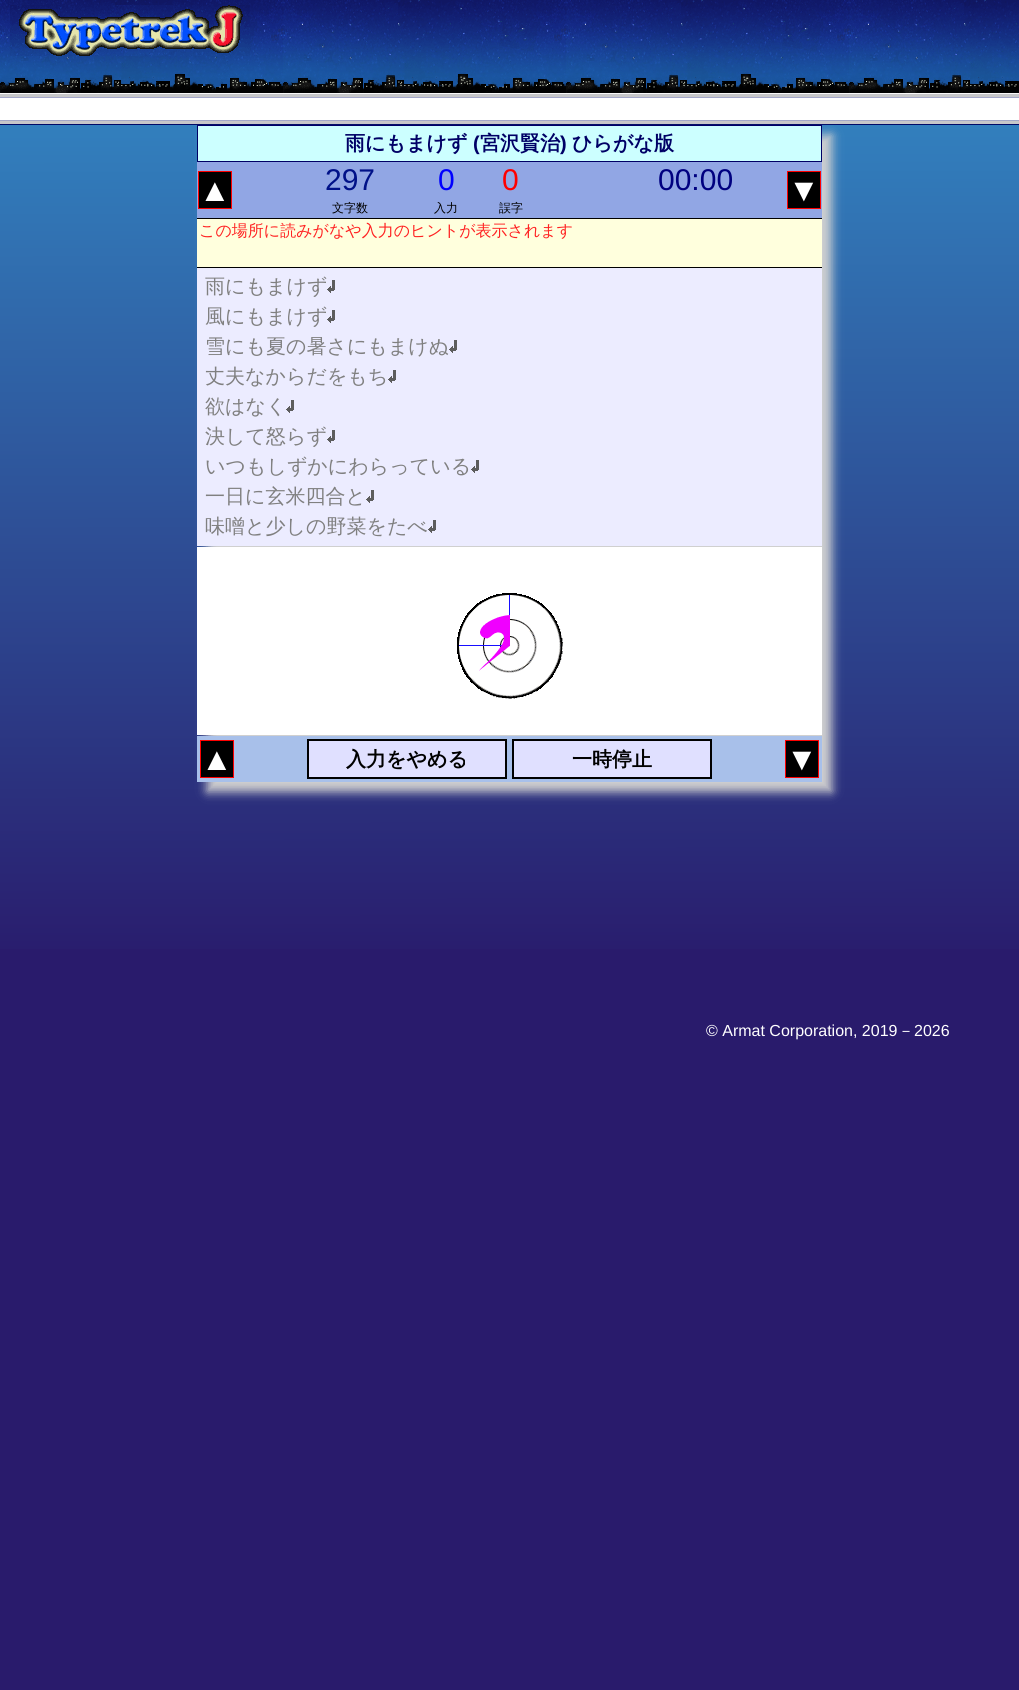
import math
import cairocffi as cairo

surface = cairo.ImageSurface(cairo.FORMAT_RGB24, 1019, 1690)
ctx = cairo.Context(surface)
options = cairo.FontOptions()
options.set_hint_metrics(cairo.HINT_METRICS_OFF)
options.set_hint_style(cairo.HINT_STYLE_NONE)
ctx.set_font_options(options)
ctx.set_miter_limit(4)


def rgb(r, g, b):
    ctx.set_source_rgb(r / 255, g / 255, b / 255)


def face(family, size, italic, bold):
    ctx.select_font_face(family, cairo.FONT_SLANT_ITALIC if italic else cairo.FONT_SLANT_NORMAL, cairo.FONT_WEIGHT_BOLD if bold else cairo.FONT_WEIGHT_NORMAL)
    ctx.set_font_size(size)


def label(x, y, s):
    ctx.move_to(x, y)
    ctx.show_text(s)


def rect(x, y, w, h):
    ctx.rectangle(x, y, w, h)
    ctx.fill()


def rrect(x, y, w, h, r):
    ctx.new_sub_path()
    for i, (u, v) in enumerate([(x + w - r, y + h - r), (x + r, y + h - r), (x + r, y + r), (x + w - r, y + r)]):
        ctx.arc(u, v, r, i * math.pi / 2, (i + 1) * math.pi / 2)
    ctx.close_path()


def soft_shadow(x, y, w, h, r, blur, alpha):
    ctx.push_group_with_content(cairo.CONTENT_ALPHA)
    ctx.set_operator(cairo.OPERATOR_SOURCE)
    for i in range(15, -16, -2):
        e = blur * i / 6
        if min(w, h) + 2 * e > 0:
            ctx.set_source_rgba(0, 0, 0, alpha * math.erfc((i - 1) / 8.5) / 2)
            rrect(x - e, y - e, w + 2 * e, h + 2 * e, max(0, min(r + e + blur * .6, min(w, h) / 2 + e)))
            ctx.fill()
    ctx.mask(ctx.pop_group())


def image(path, x, y, w, h):
    ctx.save()
    ctx.set_source_surface(cairo.ImageSurface.create_from_png(path), x, y)
    ctx.rectangle(x, y, w, h)
    ctx.fill()
    ctx.restore()


rgb(41, 27, 108)
ctx.paint()
image('image0.png', 0, 0, 1019, 125)
image('image1.png', 10, 5, 240, 51)
gradient = cairo.LinearGradient(509, 125, 510, 970)
gradient.add_color_stop_rgba(0, 0.196, 0.498, 0.741, 1)
gradient.add_color_stop_rgba(1, 0.161, 0.106, 0.424, 1)
ctx.set_source(gradient)
rect(0, 125, 1019, 824)
rgb(208, 208, 208)
soft_shadow(207, 135, 625, 657, 0, 5, 1)
rgb(204, 255, 255)
ctx.rectangle(197.5, 125.5, 624, 36)
ctx.fill_preserve()
rgb(0, 0, 102)
ctx.set_line_width(1)
ctx.stroke()
face('WenQuanYi Zen Hei', 20, 0, 1)
label(345, 150, '雨にもまけず')
face('Liberation Sans', 20, 0, 1)
label(473, 150, '(')
face('WenQuanYi Zen Hei', 20, 0, 1)
label(480, 150, '宮沢賢治')
face('Liberation Sans', 20, 0, 1)
label(560, 150, ')')
face('WenQuanYi Zen Hei', 20, 0, 1)
label(572, 150, 'ひらがな版')
rgb(145, 166, 228)
rect(197, 162, 625, 56)
rgb(0, 0, 0)
ctx.rectangle(198.5, 171.5, 33, 37)
ctx.fill_preserve()
rgb(255, 0, 0)
ctx.stroke()
face('Liberation Sans', 32, 0, 0)
rgb(255, 255, 255)
label(199, 201, '▲')
face('Liberation Sans', 30, 0, 0)
rgb(0, 17, 136)
label(325, 190, '297')
rgb(0, 0, 255)
label(438, 190, '0')
rgb(255, 0, 0)
label(502, 190, '0')
rgb(0, 0, 128)
label(658, 190, '00:00')
rgb(0, 0, 0)
ctx.rectangle(787.5, 171.5, 33, 37)
ctx.fill_preserve()
rgb(255, 0, 0)
ctx.stroke()
face('Liberation Sans', 32, 0, 0)
rgb(255, 255, 255)
label(788, 201, '▼')
face('WenQuanYi Zen Hei Medium', 12, 0, 0)
rgb(0, 0, 0)
label(332, 212, '文字数')
label(434, 212, '入力')
label(499, 212, '誤字')
rect(197, 218, 625, 1)
rect(197, 267, 625, 1)
rgb(255, 255, 221)
rect(197, 219, 625, 48)
face('WenQuanYi Zen Hei Medium', 16, 0, 0)
rgb(255, 34, 34)
label(199, 236, 'この場所に読みがなや入力のヒントが表示されます')
rgb(236, 236, 255)
rect(197, 268, 625, 278)
face('WenQuanYi Zen Hei Medium', 20, 0, 0)
rgb(128, 128, 128)
label(205, 293, '雨にもまけず')
image('image2.png', 327, 280, 8, 13)
label(205, 323, '風にもまけず')
image('image2.png', 327, 310, 8, 13)
label(205, 353, '雪にも夏の暑さにもまけぬ')
image('image2.png', 449, 340, 8, 13)
label(205, 383, '丈夫なからだをもち')
image('image2.png', 388, 370, 8, 13)
label(205, 413, '欲はなく')
image('image2.png', 286, 400, 8, 13)
label(205, 443, '決して怒らず')
image('image2.png', 327, 430, 8, 13)
label(205, 473, 'いつもしずかにわらっている')
image('image2.png', 471, 460, 8, 13)
label(205, 503, '一日に玄米四合と')
image('image2.png', 366, 490, 8, 13)
label(205, 533, '味噌と少しの野菜をたべ')
image('image2.png', 428, 520, 8, 13)
rgb(255, 255, 255)
rect(197, 547, 625, 188)
image('image3.png', 457, 593, 105, 105)
image('image4.png', 459, 595, 51, 101)
image('image5.png', 470, 613, 94, 86)
rgb(168, 192, 234)
rect(197, 736, 625, 46)
rgb(0, 0, 0)
ctx.rectangle(200.5, 740.5, 33, 37)
ctx.fill_preserve()
rgb(255, 0, 0)
ctx.stroke()
face('Liberation Sans', 32, 0, 0)
rgb(255, 255, 255)
label(201, 770, '▲')
rgb(224, 224, 255)
ctx.rectangle(308, 740, 198, 38)
ctx.fill_preserve()
rgb(0, 0, 0)
ctx.set_line_width(2)
ctx.stroke()
face('WenQuanYi Zen Hei', 20, 0, 1)
label(346, 766, '入力をやめる')
rgb(224, 224, 255)
ctx.rectangle(513, 740, 198, 38)
ctx.fill_preserve()
rgb(0, 0, 0)
ctx.stroke()
label(572, 766, '一時停止')
ctx.rectangle(785.5, 740.5, 33, 37)
ctx.fill_preserve()
rgb(255, 0, 0)
ctx.set_line_width(1)
ctx.stroke()
face('Liberation Sans', 32, 0, 0)
rgb(255, 255, 255)
label(786, 770, '▼')
face('Liberation Sans', 16, 0, 0)
label(706, 1036, '© Armat Corporation, 2019')
face('WenQuanYi Zen Hei Medium', 16, 0, 0)
label(898, 1036, '－')
face('Liberation Sans', 16, 0, 0)
label(914, 1036, '2026')
surface.write_to_png('render.png')
